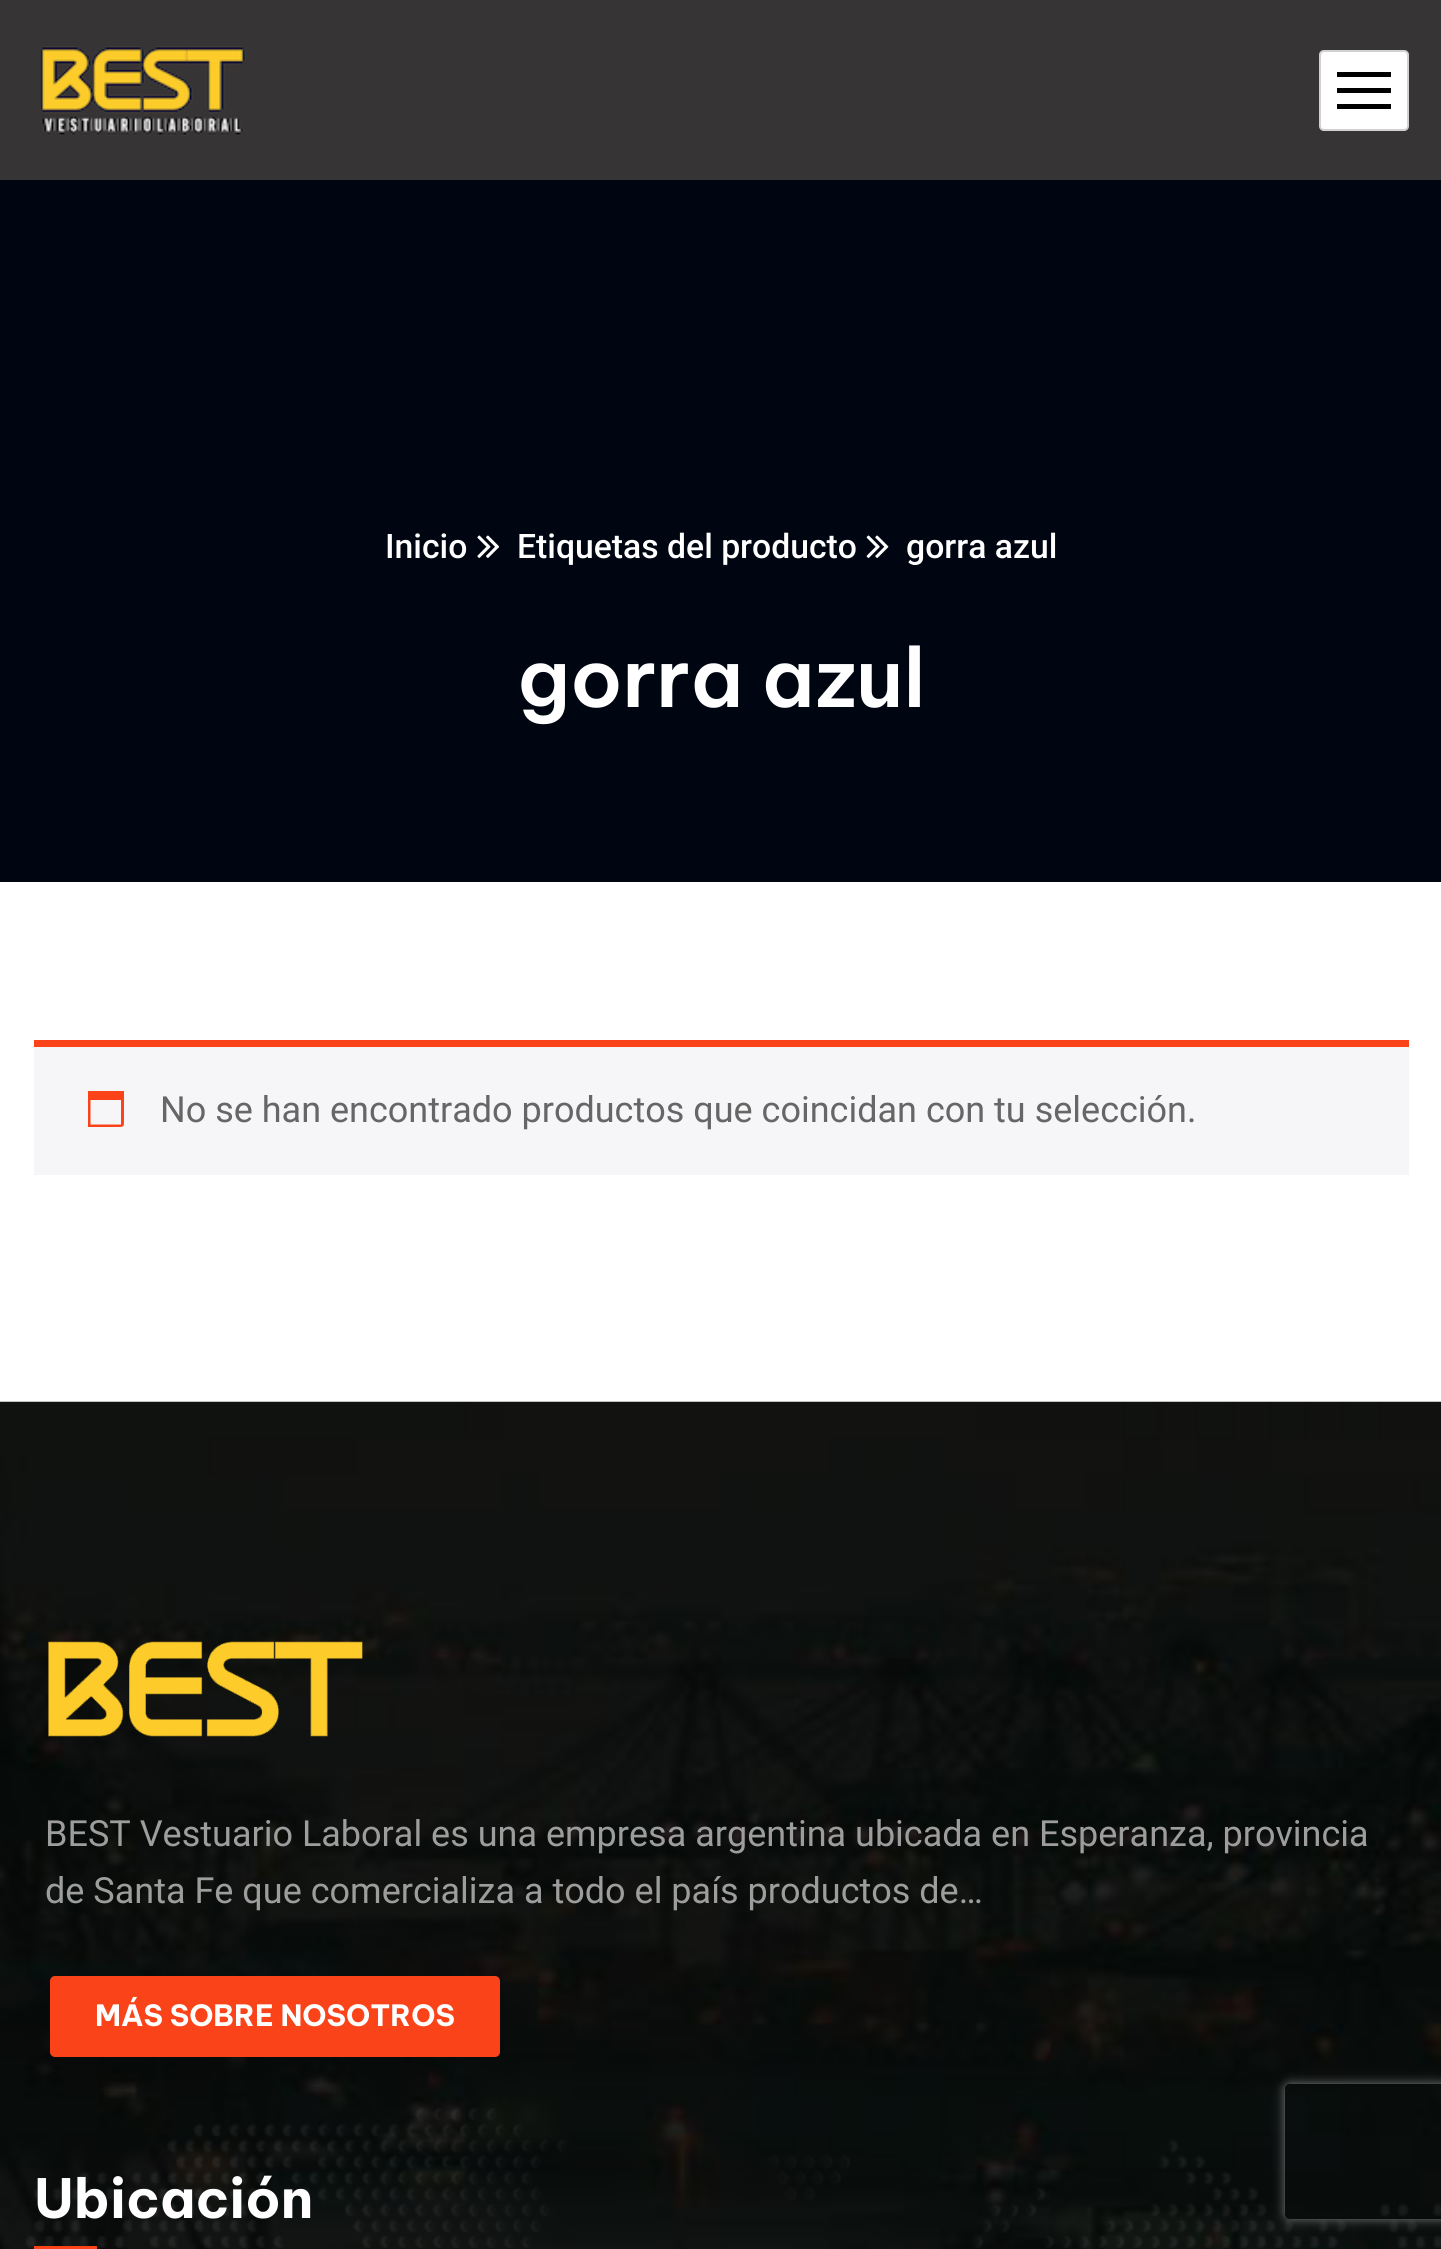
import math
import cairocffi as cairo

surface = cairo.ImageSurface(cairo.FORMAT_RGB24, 1441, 2249)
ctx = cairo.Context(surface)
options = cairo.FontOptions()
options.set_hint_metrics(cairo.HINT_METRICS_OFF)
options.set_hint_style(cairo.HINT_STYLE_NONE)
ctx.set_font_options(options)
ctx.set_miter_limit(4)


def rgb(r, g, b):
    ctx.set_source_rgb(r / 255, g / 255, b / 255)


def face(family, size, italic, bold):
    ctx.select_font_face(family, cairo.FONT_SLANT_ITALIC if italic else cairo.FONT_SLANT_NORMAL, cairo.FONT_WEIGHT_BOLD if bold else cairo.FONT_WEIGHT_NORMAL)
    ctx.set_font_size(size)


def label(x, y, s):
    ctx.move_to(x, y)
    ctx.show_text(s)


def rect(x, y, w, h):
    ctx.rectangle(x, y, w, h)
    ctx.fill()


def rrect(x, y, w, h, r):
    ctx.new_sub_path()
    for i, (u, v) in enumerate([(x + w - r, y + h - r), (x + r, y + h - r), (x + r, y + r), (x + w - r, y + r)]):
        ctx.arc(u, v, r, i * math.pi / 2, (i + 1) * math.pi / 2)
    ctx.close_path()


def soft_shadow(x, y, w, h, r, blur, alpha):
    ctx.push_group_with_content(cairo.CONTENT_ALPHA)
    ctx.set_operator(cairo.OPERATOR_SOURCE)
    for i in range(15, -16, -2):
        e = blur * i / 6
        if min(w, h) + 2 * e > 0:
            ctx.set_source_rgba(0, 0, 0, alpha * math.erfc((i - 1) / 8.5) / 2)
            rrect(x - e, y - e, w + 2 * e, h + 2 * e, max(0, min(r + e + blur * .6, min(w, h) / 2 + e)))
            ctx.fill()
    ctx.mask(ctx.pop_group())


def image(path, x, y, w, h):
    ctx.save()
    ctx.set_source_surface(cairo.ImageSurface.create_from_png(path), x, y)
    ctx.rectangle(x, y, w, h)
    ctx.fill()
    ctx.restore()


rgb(255, 255, 255)
ctx.paint()
rgb(55, 52, 54)
rect(0, 0, 1441, 180)
image('image0.png', 40, 46, 206, 90)
rgb(255, 255, 255)
rrect(1319, 50, 90, 81, 5)
ctx.fill()
rrect(1320, 51, 88, 79, 4)
ctx.set_source_rgba(0, 0, 0, 0.18)
ctx.stroke()
rgb(0, 0, 0)
rect(1337, 72, 54, 5)
rect(1337, 88, 54, 5)
rect(1337, 104, 54, 5)
rgb(0, 6, 17)
rect(0, 180, 1441, 702)
face('Roboto Medium', 33.75, 0, 0)
rgb(255, 255, 255)
label(385, 558, 'Inicio')
image('image1.png', 477, 535, 23, 23)
label(517, 558, 'Etiquetas del producto')
image('image2.png', 866, 535, 23, 23)
label(906, 558, 'gorra azul')
face('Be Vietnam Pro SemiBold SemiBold', 81, 0, 0)
label(517, 707, 'gorra azul')
rgb(246, 245, 248)
rect(34, 1047, 1375, 128)
rgb(250, 67, 24)
rect(34, 1040, 1375, 7)
ctx.new_path()
ctx.move_to(121, 1100)
ctx.line_to(90.5, 1100)
ctx.line_to(90.5, 1124.5)
ctx.line_to(121, 1124.5)
ctx.close_path()
ctx.move_to(124, 1091)
ctx.line_to(124, 1119)
ctx.curve_to(124, 1127.5, 124.5, 1127, 115.5, 1127)
ctx.line_to(88, 1127)
ctx.line_to(88, 1091)
ctx.close_path()
ctx.fill()
face('Roboto', 36, 0, 0)
rgb(102, 102, 102)
label(160, 1122, 'No se han encontrado productos que coincidan con tu selección.')
image('image3.png', 0, 1401, 1441, 848)
image('image4.png', 48, 1641, 315, 96)
rgb(157, 157, 157)
label(45, 1846, 'BEST Vestuario Laboral es una empresa argentina ubicada en Esperanza, provincia')
label(45, 1903, 'de Santa Fe que comercializa a todo el país productos de…')
rgb(250, 67, 24)
rrect(50, 1976, 450, 81, 5)
ctx.fill()
face('Be Vietnam Pro', 29.25, 0, 1)
rgb(255, 255, 255)
label(95, 2026, 'MÁS SOBRE NOSOTROS')
image('image5.png', 25, 2108, 1416, 140)
face('Be Vietnam Pro', 54, 0, 1)
label(34, 2218, 'Ubicación')
rgb(250, 67, 24)
rect(34, 2246, 63, 3)
ctx.save()
ctx.set_fill_rule(cairo.FILL_RULE_EVEN_ODD)
ctx.new_path()
ctx.move_to(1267, 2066)
ctx.line_to(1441, 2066)
ctx.line_to(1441, 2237)
ctx.line_to(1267, 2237)
ctx.close_path()
ctx.move_to(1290, 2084)
ctx.line_to(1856, 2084)
ctx.curve_to(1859, 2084, 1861, 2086, 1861, 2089)
ctx.line_to(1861, 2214)
ctx.curve_to(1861, 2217, 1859, 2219, 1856, 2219)
ctx.line_to(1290, 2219)
ctx.curve_to(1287, 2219, 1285, 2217, 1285, 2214)
ctx.line_to(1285, 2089)
ctx.curve_to(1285, 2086, 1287, 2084, 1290, 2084)
ctx.close_path()
ctx.clip()
rgb(128, 128, 128)
soft_shadow(1285, 2084, 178, 135, 5, 5.5, 1)
ctx.restore()
surface.write_to_png('render.png')
